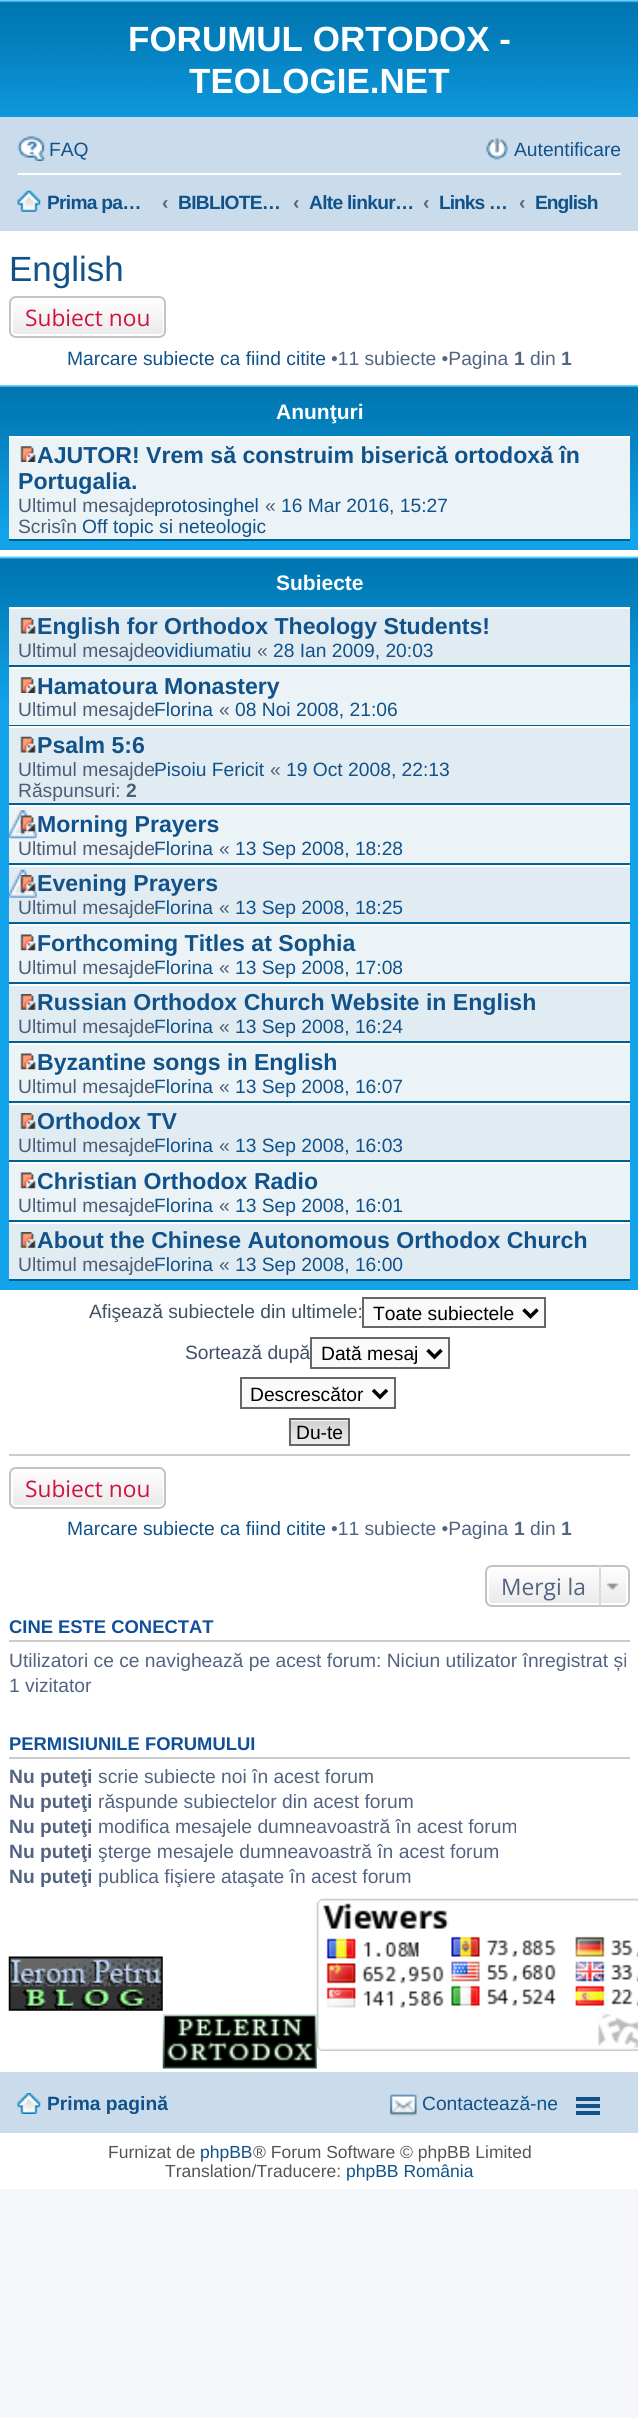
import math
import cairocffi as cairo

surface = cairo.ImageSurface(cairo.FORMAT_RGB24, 638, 2418)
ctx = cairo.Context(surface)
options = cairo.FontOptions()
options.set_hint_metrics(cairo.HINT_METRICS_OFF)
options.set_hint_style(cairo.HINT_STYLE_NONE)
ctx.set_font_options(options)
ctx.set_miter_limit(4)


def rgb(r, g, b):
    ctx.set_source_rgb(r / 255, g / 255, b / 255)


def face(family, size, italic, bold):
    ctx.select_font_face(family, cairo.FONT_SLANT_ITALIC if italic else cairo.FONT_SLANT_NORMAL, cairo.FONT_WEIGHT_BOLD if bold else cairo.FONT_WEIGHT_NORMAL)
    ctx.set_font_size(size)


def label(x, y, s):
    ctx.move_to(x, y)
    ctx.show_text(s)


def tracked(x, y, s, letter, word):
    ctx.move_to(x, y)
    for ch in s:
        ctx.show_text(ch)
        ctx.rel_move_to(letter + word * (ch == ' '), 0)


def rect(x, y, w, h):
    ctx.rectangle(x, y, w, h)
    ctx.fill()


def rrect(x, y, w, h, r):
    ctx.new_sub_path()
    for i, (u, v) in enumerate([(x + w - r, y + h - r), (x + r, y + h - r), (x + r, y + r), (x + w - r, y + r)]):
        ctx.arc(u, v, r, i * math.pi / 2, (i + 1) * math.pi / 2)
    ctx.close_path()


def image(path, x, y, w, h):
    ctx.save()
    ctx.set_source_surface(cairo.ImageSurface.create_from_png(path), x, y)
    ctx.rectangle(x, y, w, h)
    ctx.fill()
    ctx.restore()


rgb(245, 247, 250)
ctx.paint()
rgb(255, 255, 255)
rect(0, 231, 638, 1958)
image('image0.png', 0, 0, 638, 117)
face('Liberation Sans', 35, 0, 1)
label(128, 51, 'FORUMUL ORTODOX -')
label(189, 93, 'TEOLOGIE.NET')
rgb(202, 220, 235)
rect(0, 117, 638, 114)
image('image1.png', 17, 136, 29, 25)
face('Liberation Sans', 19.25, 0, 0)
rgb(16, 82, 137)
label(49, 156, 'FAQ')
image('image2.png', 486, 138, 22, 22)
label(514, 156, 'Autentificare')
rgb(255, 255, 255)
rect(18, 173, 603, 2)
image('image3.png', 17, 190, 24, 22)
face('Liberation Sans', 19.25, 0, 1)
rgb(16, 82, 137)
tracked(47, 209, 'Prima pa…', -0.75, 0)
rgb(83, 100, 130)
label(162, 209, '‹')
rgb(16, 82, 137)
tracked(178, 209, 'BIBLIOTE…', -0.75, 0)
rgb(83, 100, 130)
label(293, 209, '‹')
rgb(16, 82, 137)
tracked(309, 209, 'Alte linkur…', -0.75, 0)
rgb(83, 100, 130)
label(423, 209, '‹')
rgb(16, 82, 137)
tracked(439, 209, 'Links …', -1, 0)
rgb(83, 100, 130)
label(519, 209, '‹')
rgb(16, 82, 137)
tracked(535, 209, 'English', -1, 0)
face('Liberation Sans', 35, 0, 0)
label(9, 281, 'English')
ctx.save()
rrect(9, 296, 157, 42, 7)
ctx.clip()
gradient = cairo.LinearGradient(88, 298, 88, 336)
gradient.add_color_stop_rgba(0, 1, 1, 1, 1)
gradient.add_color_stop_rgba(1, 0.914, 0.914, 0.914, 1)
ctx.set_source(gradient)
rect(9, 298, 157, 38)
ctx.restore()
rrect(12, 299, 152, 36, 4)
rgb(255, 255, 255)
ctx.stroke()
rrect(10, 297, 155, 40, 6)
rgb(199, 195, 191)
ctx.stroke()
face('Open Sans', 22.75, 0, 0)
rgb(211, 17, 65)
label(25, 326, 'Subiect nou')
face('Liberation Sans', 19.25, 0, 0)
rgb(16, 82, 137)
label(67, 365, 'Marcare subiecte ca fiind citite')
rgb(83, 100, 130)
label(331, 365, '•11 subiecte •Pagina')
face('Liberation Sans', 19.25, 0, 1)
label(514, 365, '1')
face('Liberation Sans', 19.25, 0, 0)
label(530, 365, 'din')
face('Liberation Sans', 19.25, 0, 1)
label(561, 365, '1')
rgb(18, 163, 235)
rect(0, 528, 638, 22)
image('image4.png', 0, 385, 638, 143)
face('Liberation Sans', 21, 0, 1)
rgb(255, 255, 255)
label(276, 419, 'Anunţuri')
rgb(236, 243, 247)
rect(9, 438, 621, 101)
rgb(255, 255, 255)
rect(9, 436, 621, 2)
rgb(0, 96, 143)
rect(9, 539, 621, 2)
image('image5.png', 20, 446, 16, 16)
face('Liberation Sans', 23.1, 0, 1)
rgb(16, 82, 137)
label(37, 463, 'AJUTOR! Vrem să construim biserică ortodoxă în')
label(18, 489, 'Portugalia.')
face('Liberation Sans', 19.25, 0, 0)
rgb(76, 93, 119)
label(18, 512, 'Ultimul mesajde')
rgb(16, 82, 137)
label(154, 512, 'protosinghel')
rgb(76, 93, 119)
label(265, 512, '«')
rgb(16, 82, 137)
label(281, 512, '16 Mar 2016, 15:27')
rgb(76, 93, 119)
label(18, 533, 'Scrisîn')
rgb(16, 82, 137)
label(82, 533, 'Off topic si neteologic')
rgb(18, 163, 235)
rect(0, 700, 638, 590)
image('image6.png', 0, 556, 638, 144)
face('Liberation Sans', 21, 0, 1)
rgb(255, 255, 255)
label(276, 590, 'Subiecte')
rgb(225, 235, 242)
rect(9, 609, 621, 56)
rgb(255, 255, 255)
rect(9, 607, 621, 2)
rgb(0, 96, 143)
rect(9, 665, 621, 2)
image('image7.png', 20, 617, 16, 17)
face('Liberation Sans', 23.1, 0, 1)
rgb(16, 82, 137)
label(37, 634, 'English for Orthodox Theology Students!')
face('Liberation Sans', 19.25, 0, 0)
rgb(76, 93, 119)
label(18, 657, 'Ultimul mesajde')
rgb(16, 82, 137)
label(154, 657, 'ovidiumatiu')
rgb(76, 93, 119)
label(257, 657, '«')
rgb(16, 82, 137)
label(273, 657, '28 Ian 2009, 20:03')
rgb(236, 243, 247)
rect(9, 669, 621, 56)
rgb(255, 255, 255)
rect(9, 667, 621, 2)
rgb(0, 96, 143)
rect(9, 725, 621, 1)
image('image5.png', 20, 677, 16, 16)
face('Liberation Sans', 23.1, 0, 1)
rgb(16, 82, 137)
label(37, 694, 'Hamatoura Monastery')
face('Liberation Sans', 19.25, 0, 0)
rgb(76, 93, 119)
label(18, 716, 'Ultimul mesajde')
rgb(16, 82, 137)
label(154, 716, 'Florina')
rgb(76, 93, 119)
label(219, 716, '«')
rgb(16, 82, 137)
label(235, 716, '08 Noi 2008, 21:06')
rgb(225, 235, 242)
rect(9, 728, 621, 75)
rgb(255, 255, 255)
rect(9, 726, 621, 2)
rgb(0, 96, 143)
rect(9, 803, 621, 2)
image('image7.png', 20, 736, 16, 17)
face('Liberation Sans', 23.1, 0, 1)
rgb(16, 82, 137)
label(37, 753, 'Psalm 5:6')
face('Liberation Sans', 19.25, 0, 0)
rgb(76, 93, 119)
label(18, 776, 'Ultimul mesajde')
rgb(16, 82, 137)
label(154, 776, 'Pisoiu Fericit')
rgb(76, 93, 119)
label(270, 776, '«')
rgb(16, 82, 137)
label(286, 776, '19 Oct 2008, 22:13')
rgb(76, 93, 119)
label(18, 797, 'Răspunsuri:')
face('Liberation Sans', 19.25, 0, 1)
label(126, 797, '2')
rgb(236, 243, 247)
rect(9, 807, 621, 56)
rgb(255, 255, 255)
rect(9, 805, 621, 2)
rgb(0, 96, 143)
rect(9, 863, 621, 2)
image('image8.png', 8, 810, 29, 29)
image('image9.png', 20, 815, 16, 17)
face('Liberation Sans', 23.1, 0, 1)
rgb(16, 82, 137)
label(37, 832, 'Morning Prayers')
face('Liberation Sans', 19.25, 0, 0)
rgb(76, 93, 119)
label(18, 855, 'Ultimul mesajde')
rgb(16, 82, 137)
label(154, 855, 'Florina')
rgb(76, 93, 119)
label(219, 855, '«')
rgb(16, 82, 137)
label(235, 855, '13 Sep 2008, 18:28')
rgb(225, 235, 242)
rect(9, 867, 621, 55)
rgb(255, 255, 255)
rect(9, 865, 621, 2)
rgb(0, 96, 143)
rect(9, 922, 621, 2)
image('image10.png', 8, 869, 29, 29)
image('image11.png', 20, 875, 16, 16)
face('Liberation Sans', 23.1, 0, 1)
rgb(16, 82, 137)
label(37, 891, 'Evening Prayers')
face('Liberation Sans', 19.25, 0, 0)
rgb(76, 93, 119)
label(18, 914, 'Ultimul mesajde')
rgb(16, 82, 137)
label(154, 914, 'Florina')
rgb(76, 93, 119)
label(219, 914, '«')
rgb(16, 82, 137)
label(235, 914, '13 Sep 2008, 18:25')
rgb(236, 243, 247)
rect(9, 926, 621, 56)
rgb(255, 255, 255)
rect(9, 924, 621, 2)
rgb(0, 96, 143)
rect(9, 982, 621, 2)
image('image12.png', 20, 934, 16, 17)
face('Liberation Sans', 23.1, 0, 1)
rgb(16, 82, 137)
label(37, 951, 'Forthcoming Titles at Sophia')
face('Liberation Sans', 19.25, 0, 0)
rgb(76, 93, 119)
label(18, 974, 'Ultimul mesajde')
rgb(16, 82, 137)
label(154, 974, 'Florina')
rgb(76, 93, 119)
label(219, 974, '«')
rgb(16, 82, 137)
label(235, 974, '13 Sep 2008, 17:08')
rgb(225, 235, 242)
rect(9, 986, 621, 55)
rgb(255, 255, 255)
rect(9, 984, 621, 2)
rgb(0, 96, 143)
rect(9, 1041, 621, 2)
image('image13.png', 20, 994, 16, 16)
face('Liberation Sans', 23.1, 0, 1)
rgb(16, 82, 137)
label(37, 1010, 'Russian Orthodox Church Website in English')
face('Liberation Sans', 19.25, 0, 0)
rgb(76, 93, 119)
label(18, 1033, 'Ultimul mesajde')
rgb(16, 82, 137)
label(154, 1033, 'Florina')
rgb(76, 93, 119)
label(219, 1033, '«')
rgb(16, 82, 137)
label(235, 1033, '13 Sep 2008, 16:24')
rgb(236, 243, 247)
rect(9, 1045, 621, 56)
rgb(255, 255, 255)
rect(9, 1043, 621, 2)
rgb(0, 96, 143)
rect(9, 1101, 621, 2)
image('image12.png', 20, 1053, 16, 17)
face('Liberation Sans', 23.1, 0, 1)
rgb(16, 82, 137)
label(37, 1070, 'Byzantine songs in English')
face('Liberation Sans', 19.25, 0, 0)
rgb(76, 93, 119)
label(18, 1093, 'Ultimul mesajde')
rgb(16, 82, 137)
label(154, 1093, 'Florina')
rgb(76, 93, 119)
label(219, 1093, '«')
rgb(16, 82, 137)
label(235, 1093, '13 Sep 2008, 16:07')
rgb(225, 235, 242)
rect(9, 1105, 621, 55)
rgb(255, 255, 255)
rect(9, 1103, 621, 2)
rgb(0, 96, 143)
rect(9, 1160, 621, 2)
image('image13.png', 20, 1113, 16, 16)
face('Liberation Sans', 23.1, 0, 1)
rgb(16, 82, 137)
label(37, 1129, 'Orthodox TV')
face('Liberation Sans', 19.25, 0, 0)
rgb(76, 93, 119)
label(18, 1152, 'Ultimul mesajde')
rgb(16, 82, 137)
label(154, 1152, 'Florina')
rgb(76, 93, 119)
label(219, 1152, '«')
rgb(16, 82, 137)
label(235, 1152, '13 Sep 2008, 16:03')
rgb(236, 243, 247)
rect(9, 1164, 621, 56)
rgb(255, 255, 255)
rect(9, 1162, 621, 2)
rgb(0, 96, 143)
rect(9, 1220, 621, 2)
image('image12.png', 20, 1172, 16, 17)
face('Liberation Sans', 23.1, 0, 1)
rgb(16, 82, 137)
label(37, 1189, 'Christian Orthodox Radio')
face('Liberation Sans', 19.25, 0, 0)
rgb(76, 93, 119)
label(18, 1212, 'Ultimul mesajde')
rgb(16, 82, 137)
label(154, 1212, 'Florina')
rgb(76, 93, 119)
label(219, 1212, '«')
rgb(16, 82, 137)
label(235, 1212, '13 Sep 2008, 16:01')
rgb(225, 235, 242)
rect(9, 1224, 621, 55)
rgb(255, 255, 255)
rect(9, 1222, 621, 2)
rgb(0, 96, 143)
rect(9, 1279, 621, 2)
image('image13.png', 20, 1232, 16, 16)
face('Liberation Sans', 23.1, 0, 1)
rgb(16, 82, 137)
label(37, 1248, 'About the Chinese Autonomous Orthodox Church')
face('Liberation Sans', 19.25, 0, 0)
rgb(76, 93, 119)
label(18, 1271, 'Ultimul mesajde')
rgb(16, 82, 137)
label(154, 1271, 'Florina')
rgb(76, 93, 119)
label(219, 1271, '«')
rgb(16, 82, 137)
label(235, 1271, '13 Sep 2008, 16:00')
rgb(66, 80, 103)
label(89, 1318, 'Afişează subiectele din ultimele:')
rgb(250, 250, 250)
ctx.rectangle(363, 1298, 182, 29)
ctx.fill_preserve()
rgb(102, 102, 102)
ctx.stroke()
ctx.new_path()
ctx.move_to(523.5, 1309.5)
ctx.line_to(530.5, 1316.5)
ctx.line_to(537.5, 1309.5)
rgb(0, 0, 0)
ctx.set_line_width(3.5)
ctx.stroke()
label(373, 1320, 'Toate subiectele')
rgb(66, 80, 103)
label(185, 1359, 'Sortează după')
rgb(250, 250, 250)
ctx.rectangle(311, 1338, 138, 30)
ctx.fill_preserve()
rgb(102, 102, 102)
ctx.set_line_width(2)
ctx.stroke()
ctx.new_path()
ctx.move_to(427.5, 1350)
ctx.line_to(434.5, 1357)
ctx.line_to(441.5, 1350)
rgb(0, 0, 0)
ctx.set_line_width(3.5)
ctx.stroke()
label(321, 1360, 'Dată mesaj')
rgb(250, 250, 250)
ctx.rectangle(241, 1378, 154, 30)
ctx.fill_preserve()
rgb(102, 102, 102)
ctx.set_line_width(2)
ctx.stroke()
ctx.new_path()
ctx.move_to(373, 1390)
ctx.line_to(380, 1397)
ctx.line_to(387, 1390)
rgb(0, 0, 0)
ctx.set_line_width(3.5)
ctx.stroke()
label(250, 1401, 'Descrescător')
image('image14.png', 288, 1420, 60, 26)
ctx.rectangle(290, 1419, 59, 26)
rgb(102, 102, 102)
ctx.set_line_width(2)
ctx.stroke()
rgb(0, 0, 0)
label(296, 1439, 'Du-te')
rgb(204, 204, 204)
rect(9, 1454, 621, 2)
ctx.save()
rrect(9, 1467, 157, 42, 7)
ctx.clip()
gradient = cairo.LinearGradient(88, 1468, 88, 1507)
gradient.add_color_stop_rgba(0, 1, 1, 1, 1)
gradient.add_color_stop_rgba(1, 0.914, 0.914, 0.914, 1)
ctx.set_source(gradient)
rect(9, 1468, 157, 39)
ctx.restore()
rrect(12, 1469, 152, 37, 4)
rgb(255, 255, 255)
ctx.stroke()
rrect(10, 1468, 155, 40, 6)
rgb(199, 195, 191)
ctx.stroke()
face('Open Sans', 22.75, 0, 0)
rgb(211, 17, 65)
label(25, 1497, 'Subiect nou')
face('Liberation Sans', 19.25, 0, 0)
rgb(16, 82, 137)
label(67, 1535, 'Marcare subiecte ca fiind citite')
rgb(83, 100, 130)
label(331, 1535, '•11 subiecte •Pagina')
face('Liberation Sans', 19.25, 0, 1)
label(514, 1535, '1')
face('Liberation Sans', 19.25, 0, 0)
label(530, 1535, 'din')
face('Liberation Sans', 19.25, 0, 1)
label(561, 1535, '1')
ctx.save()
rrect(485, 1565, 145, 42, 7)
ctx.clip()
gradient = cairo.LinearGradient(557, 1566, 557, 1605)
gradient.add_color_stop_rgba(0, 1, 1, 1, 1)
gradient.add_color_stop_rgba(1, 0.914, 0.914, 0.914, 1)
ctx.set_source(gradient)
rect(485, 1566, 145, 39)
ctx.restore()
rrect(488, 1567, 139, 37, 4)
rgb(255, 255, 255)
ctx.stroke()
rrect(486, 1566, 143, 40, 6)
rgb(199, 195, 191)
ctx.stroke()
face('Open Sans', 22.75, 0, 0)
rgb(83, 100, 130)
label(501, 1595, 'Mergi la')
image('image15.png', 606, 1583, 13, 8)
rgb(218, 218, 218)
rect(599, 1566, 2, 39)
rgb(204, 204, 204)
rect(9, 1640, 621, 2)
face('Liberation Sans', 18.4, 0, 1)
rgb(17, 80, 152)
label(9, 1633, 'CINE ESTE CONECTAT')
face('Liberation Sans', 19.25, 0, 0)
rgb(83, 100, 130)
label(9, 1667, 'Utilizatori ce ce navighează pe acest forum: Niciun utilizator înregistrat și')
label(9, 1692, '1 vizitator')
rgb(204, 204, 204)
rect(9, 1757, 621, 2)
face('Liberation Sans', 18.4, 0, 1)
rgb(17, 80, 152)
label(9, 1750, 'PERMISIUNILE FORUMULUI')
face('Liberation Sans', 19.25, 0, 1)
rgb(83, 100, 130)
label(9, 1783, 'Nu puteţi')
face('Liberation Sans', 19.25, 0, 0)
label(98, 1783, 'scrie subiecte noi în acest forum')
face('Liberation Sans', 19.25, 0, 1)
label(9, 1808, 'Nu puteţi')
face('Liberation Sans', 19.25, 0, 0)
label(98, 1808, 'răspunde subiectelor din acest forum')
face('Liberation Sans', 19.25, 0, 1)
label(9, 1833, 'Nu puteţi')
face('Liberation Sans', 19.25, 0, 0)
label(98, 1833, 'modifica mesajele dumneavoastră în acest forum')
face('Liberation Sans', 19.25, 0, 1)
label(9, 1858, 'Nu puteţi')
face('Liberation Sans', 19.25, 0, 0)
label(98, 1858, 'şterge mesajele dumneavoastră în acest forum')
face('Liberation Sans', 19.25, 0, 1)
label(9, 1883, 'Nu puteţi')
face('Liberation Sans', 19.25, 0, 0)
label(98, 1883, 'publica fişiere ataşate în acest forum')
image('image16.png', 8, 1956, 155, 55)
image('image17.png', 316, 1898, 322, 153)
image('image18.png', 162, 2014, 155, 55)
rgb(202, 220, 235)
rect(0, 2072, 638, 61)
image('image19.png', 17, 2093, 24, 21)
face('Liberation Sans', 19.25, 0, 1)
rgb(16, 82, 137)
label(47, 2110, 'Prima pagină')
image('image20.png', 390, 2094, 27, 22)
face('Liberation Sans', 19.25, 0, 0)
label(422, 2110, 'Contactează-ne')
rect(576, 2097, 24, 4)
rect(576, 2104, 24, 4)
rect(576, 2111, 24, 4)
face('Liberation Sans', 17.5, 0, 0)
rgb(85, 85, 85)
label(108, 2158, 'Furnizat de')
rgb(16, 82, 137)
label(200, 2158, 'phpBB')
rgb(85, 85, 85)
label(253, 2158, '® Forum Software © phpBB Limited')
label(165, 2177, 'Translation/Traducere:')
rgb(16, 82, 137)
label(346, 2177, 'phpBB România')
surface.write_to_png('render.png')
